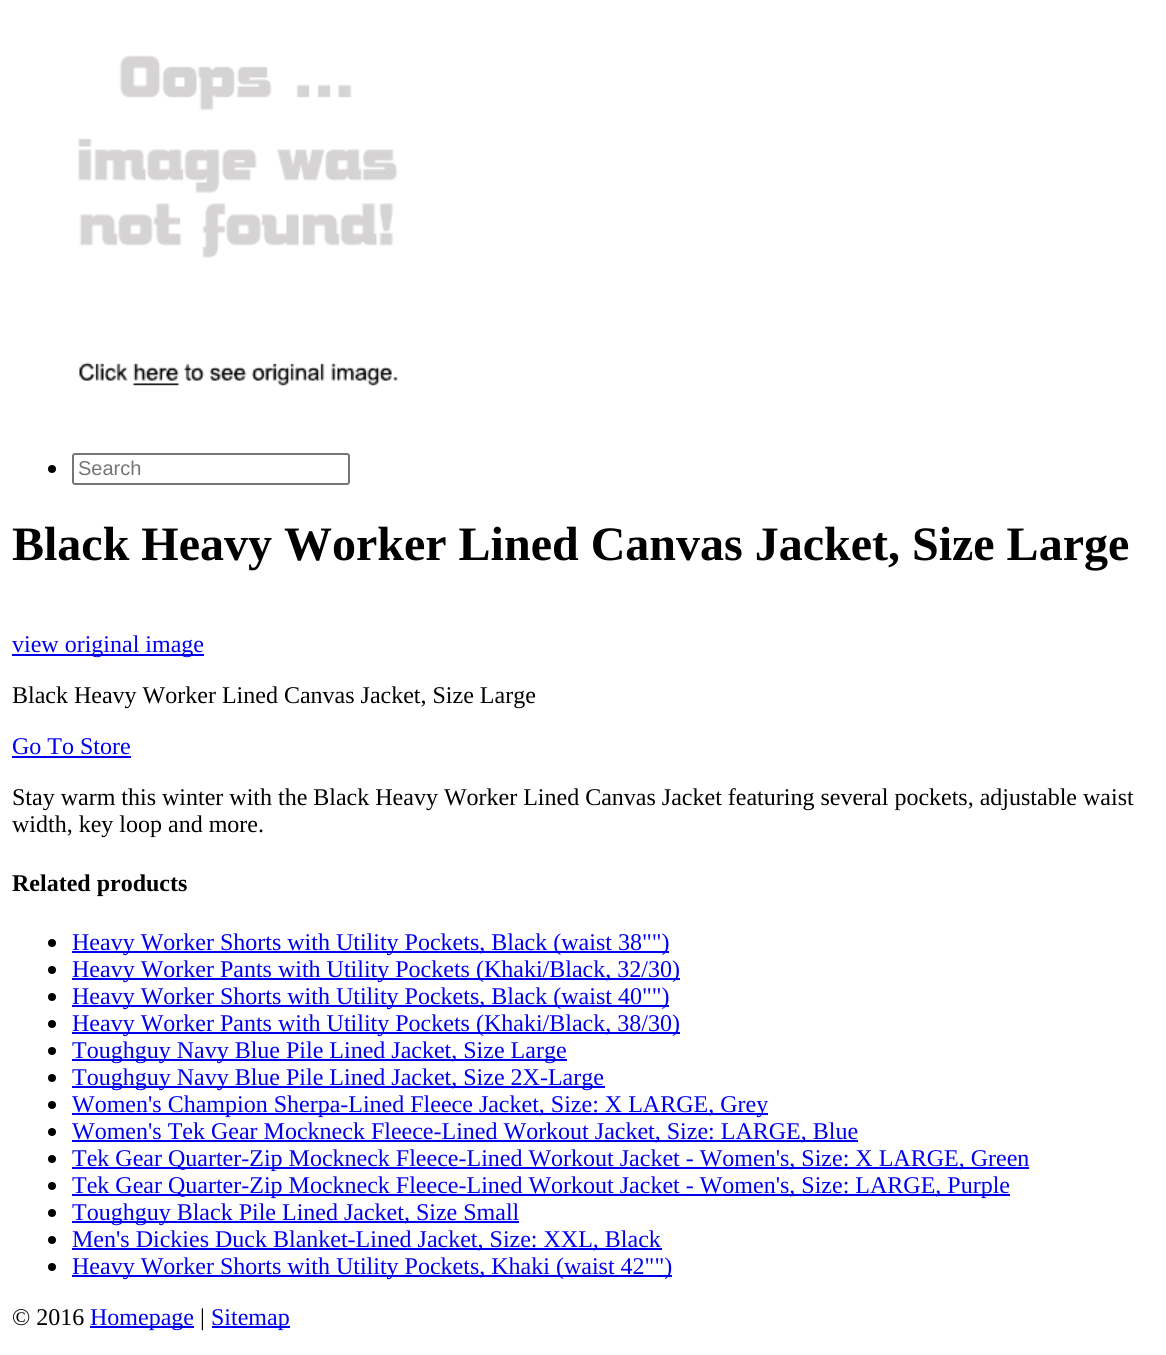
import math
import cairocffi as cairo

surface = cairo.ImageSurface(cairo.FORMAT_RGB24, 1166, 1355)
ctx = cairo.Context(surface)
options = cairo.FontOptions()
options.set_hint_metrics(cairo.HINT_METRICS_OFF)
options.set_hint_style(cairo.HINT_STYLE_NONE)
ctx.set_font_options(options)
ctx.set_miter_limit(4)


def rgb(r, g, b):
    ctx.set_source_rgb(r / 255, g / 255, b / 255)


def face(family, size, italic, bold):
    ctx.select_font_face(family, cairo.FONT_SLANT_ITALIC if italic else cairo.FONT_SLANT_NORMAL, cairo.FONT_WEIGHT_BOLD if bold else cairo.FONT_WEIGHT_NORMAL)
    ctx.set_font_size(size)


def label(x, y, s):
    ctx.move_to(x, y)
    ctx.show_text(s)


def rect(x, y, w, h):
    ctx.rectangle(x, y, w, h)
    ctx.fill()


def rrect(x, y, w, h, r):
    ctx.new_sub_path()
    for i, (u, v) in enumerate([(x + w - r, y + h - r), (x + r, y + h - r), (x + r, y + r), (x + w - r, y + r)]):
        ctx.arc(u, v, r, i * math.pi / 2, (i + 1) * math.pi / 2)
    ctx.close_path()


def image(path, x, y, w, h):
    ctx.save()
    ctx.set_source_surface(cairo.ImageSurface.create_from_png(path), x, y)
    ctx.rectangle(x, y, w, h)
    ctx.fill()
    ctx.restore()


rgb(255, 255, 255)
ctx.paint()
image('image0.png', 78, 55, 320, 331)
rgb(0, 0, 0)
ctx.arc(52, 469, 4, 0, 2 * math.pi)
ctx.fill()
rrect(73, 454, 276, 30, 2)
rgb(118, 118, 118)
ctx.stroke()
face('Liberation Sans', 20, 0, 0)
rgb(117, 117, 117)
label(78, 475, 'Search')
face('Liberation Serif', 48, 0, 1)
rgb(0, 0, 0)
label(12, 560, 'Black Heavy Worker Lined Canvas Jacket, Size Large')
rgb(0, 0, 238)
rect(12, 654, 192, 2)
face('Liberation Serif', 24, 0, 0)
label(12, 652, 'view original image')
rgb(0, 0, 0)
label(12, 703, 'Black Heavy Worker Lined Canvas Jacket, Size Large')
rgb(0, 0, 238)
label(12, 754, 'Go To Store')
rect(12, 756, 119, 2)
rgb(0, 0, 0)
label(12, 805, 'Stay warm this winter with the Black Heavy Worker Lined Canvas Jacket featuring several pockets, adjustable waist')
label(12, 832, 'width, key loop and more.')
face('Liberation Serif', 24, 0, 1)
label(12, 891, 'Related products')
ctx.new_path()
ctx.arc(52, 943, 4, 0, 2 * math.pi)
ctx.fill()
rgb(0, 0, 238)
rect(72, 951, 597, 2)
face('Liberation Serif', 24, 0, 0)
label(72, 950, 'Heavy Worker Shorts with Utility Pockets, Black (waist 38"")')
rgb(0, 0, 0)
ctx.new_path()
ctx.arc(52, 970, 4, 0, 2 * math.pi)
ctx.fill()
rgb(0, 0, 238)
rect(72, 978, 608, 2)
label(72, 977, 'Heavy Worker Pants with Utility Pockets (Khaki/Black, 32/30)')
rgb(0, 0, 0)
ctx.new_path()
ctx.arc(52, 997, 4, 0, 2 * math.pi)
ctx.fill()
rgb(0, 0, 238)
rect(72, 1005, 597, 2)
label(72, 1004, 'Heavy Worker Shorts with Utility Pockets, Black (waist 40"")')
rgb(0, 0, 0)
ctx.new_path()
ctx.arc(52, 1024, 4, 0, 2 * math.pi)
ctx.fill()
rgb(0, 0, 238)
rect(72, 1032, 608, 2)
label(72, 1031, 'Heavy Worker Pants with Utility Pockets (Khaki/Black, 38/30)')
rgb(0, 0, 0)
ctx.new_path()
ctx.arc(52, 1051, 4, 0, 2 * math.pi)
ctx.fill()
rgb(0, 0, 238)
rect(72, 1059, 495, 2)
label(72, 1058, 'Toughguy Navy Blue Pile Lined Jacket, Size Large')
rgb(0, 0, 0)
ctx.new_path()
ctx.arc(52, 1078, 4, 0, 2 * math.pi)
ctx.fill()
rgb(0, 0, 238)
rect(72, 1086, 533, 2)
label(72, 1085, 'Toughguy Navy Blue Pile Lined Jacket, Size 2X-Large')
rgb(0, 0, 0)
ctx.new_path()
ctx.arc(52, 1105, 4, 0, 2 * math.pi)
ctx.fill()
rgb(0, 0, 238)
rect(72, 1113, 696, 2)
label(72, 1112, 'Women\'s Champion Sherpa-Lined Fleece Jacket, Size: X LARGE, Grey')
rgb(0, 0, 0)
ctx.new_path()
ctx.arc(52, 1132, 4, 0, 2 * math.pi)
ctx.fill()
rgb(0, 0, 238)
rect(72, 1140, 786, 2)
label(72, 1139, 'Women\'s Tek Gear Mockneck Fleece-Lined Workout Jacket, Size: LARGE, Blue')
rgb(0, 0, 0)
ctx.new_path()
ctx.arc(52, 1159, 4, 0, 2 * math.pi)
ctx.fill()
rgb(0, 0, 238)
rect(72, 1167, 957, 2)
label(72, 1166, 'Tek Gear Quarter-Zip Mockneck Fleece-Lined Workout Jacket - Women\'s, Size: X LARGE, Green')
rgb(0, 0, 0)
ctx.new_path()
ctx.arc(52, 1186, 4, 0, 2 * math.pi)
ctx.fill()
rgb(0, 0, 238)
rect(72, 1194, 938, 2)
label(72, 1193, 'Tek Gear Quarter-Zip Mockneck Fleece-Lined Workout Jacket - Women\'s, Size: LARGE, Purple')
rgb(0, 0, 0)
ctx.new_path()
ctx.arc(52, 1213, 4, 0, 2 * math.pi)
ctx.fill()
rgb(0, 0, 238)
rect(72, 1221, 447, 2)
label(72, 1220, 'Toughguy Black Pile Lined Jacket, Size Small')
rgb(0, 0, 0)
ctx.new_path()
ctx.arc(52, 1240, 4, 0, 2 * math.pi)
ctx.fill()
rgb(0, 0, 238)
rect(72, 1248, 590, 2)
label(72, 1247, 'Men\'s Dickies Duck Blanket-Lined Jacket, Size: XXL, Black')
rgb(0, 0, 0)
ctx.new_path()
ctx.arc(52, 1267, 4, 0, 2 * math.pi)
ctx.fill()
rgb(0, 0, 238)
rect(72, 1275, 600, 2)
label(72, 1274, 'Heavy Worker Shorts with Utility Pockets, Khaki (waist 42"")')
rgb(0, 0, 0)
label(12, 1325, '© 2016')
rgb(0, 0, 238)
rect(90, 1326, 104, 2)
label(90, 1325, 'Homepage')
rgb(0, 0, 0)
label(200, 1325, '|')
rgb(0, 0, 238)
rect(212, 1326, 78, 2)
label(211, 1325, 'Sitemap')
surface.write_to_png('render.png')
